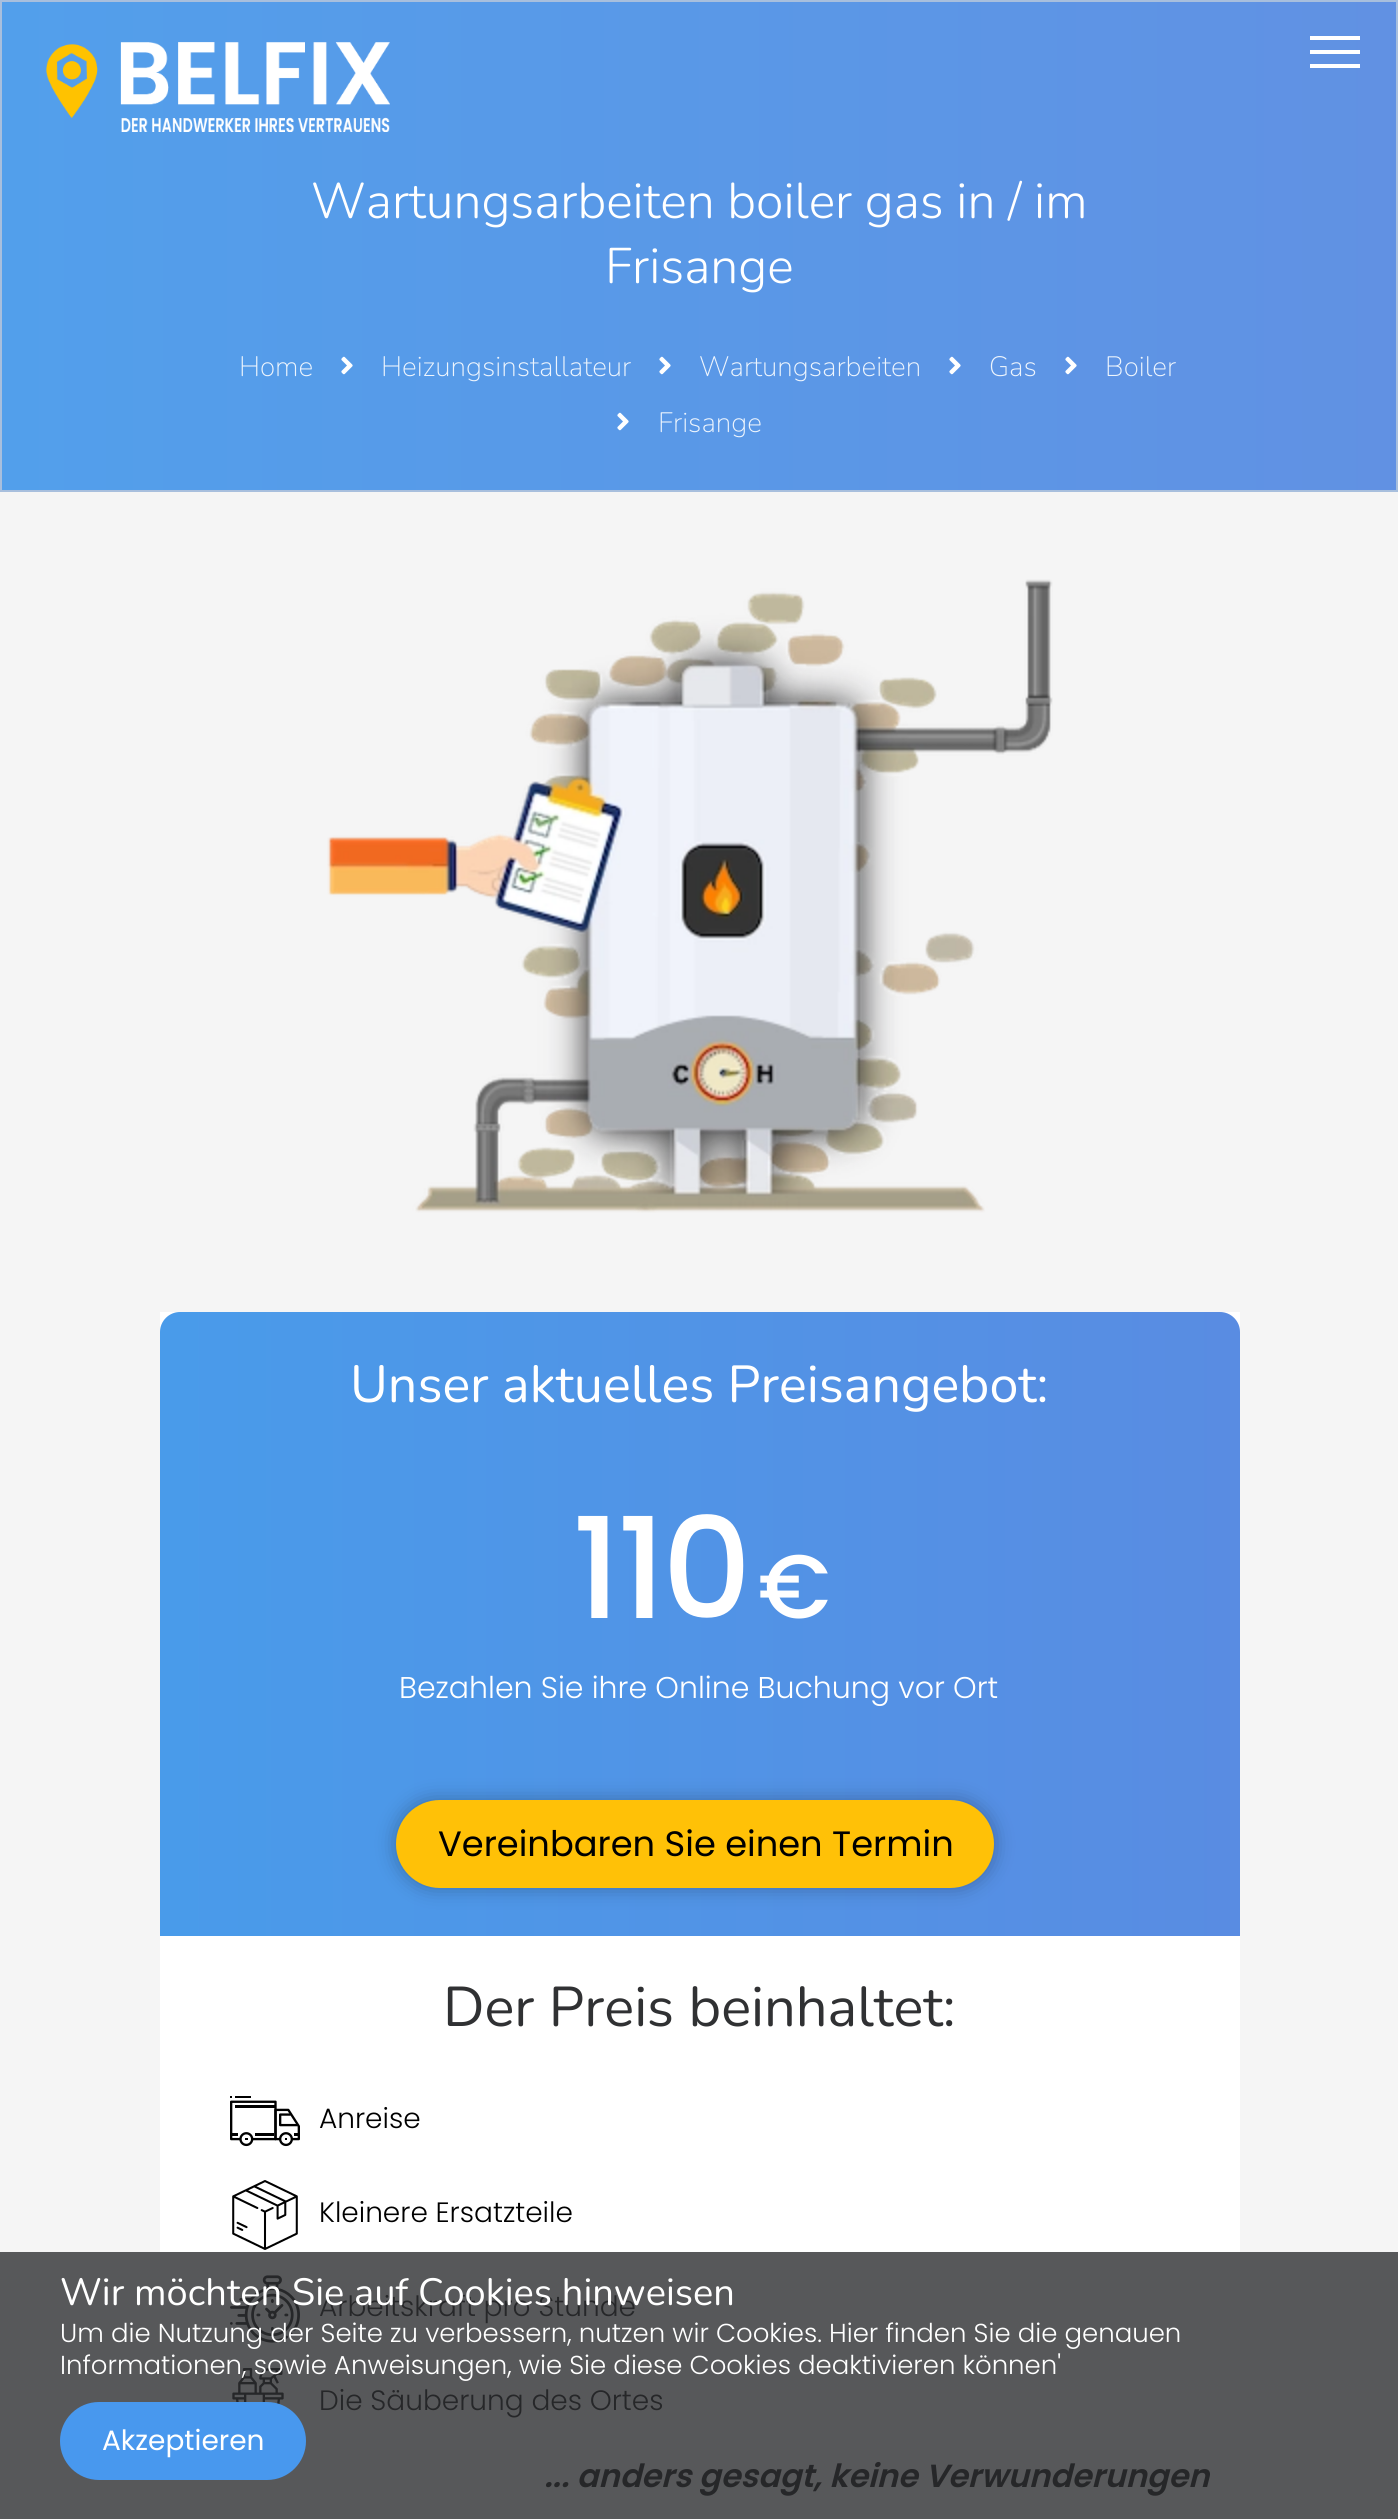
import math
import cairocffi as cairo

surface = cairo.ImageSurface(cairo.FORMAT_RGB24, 1398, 2519)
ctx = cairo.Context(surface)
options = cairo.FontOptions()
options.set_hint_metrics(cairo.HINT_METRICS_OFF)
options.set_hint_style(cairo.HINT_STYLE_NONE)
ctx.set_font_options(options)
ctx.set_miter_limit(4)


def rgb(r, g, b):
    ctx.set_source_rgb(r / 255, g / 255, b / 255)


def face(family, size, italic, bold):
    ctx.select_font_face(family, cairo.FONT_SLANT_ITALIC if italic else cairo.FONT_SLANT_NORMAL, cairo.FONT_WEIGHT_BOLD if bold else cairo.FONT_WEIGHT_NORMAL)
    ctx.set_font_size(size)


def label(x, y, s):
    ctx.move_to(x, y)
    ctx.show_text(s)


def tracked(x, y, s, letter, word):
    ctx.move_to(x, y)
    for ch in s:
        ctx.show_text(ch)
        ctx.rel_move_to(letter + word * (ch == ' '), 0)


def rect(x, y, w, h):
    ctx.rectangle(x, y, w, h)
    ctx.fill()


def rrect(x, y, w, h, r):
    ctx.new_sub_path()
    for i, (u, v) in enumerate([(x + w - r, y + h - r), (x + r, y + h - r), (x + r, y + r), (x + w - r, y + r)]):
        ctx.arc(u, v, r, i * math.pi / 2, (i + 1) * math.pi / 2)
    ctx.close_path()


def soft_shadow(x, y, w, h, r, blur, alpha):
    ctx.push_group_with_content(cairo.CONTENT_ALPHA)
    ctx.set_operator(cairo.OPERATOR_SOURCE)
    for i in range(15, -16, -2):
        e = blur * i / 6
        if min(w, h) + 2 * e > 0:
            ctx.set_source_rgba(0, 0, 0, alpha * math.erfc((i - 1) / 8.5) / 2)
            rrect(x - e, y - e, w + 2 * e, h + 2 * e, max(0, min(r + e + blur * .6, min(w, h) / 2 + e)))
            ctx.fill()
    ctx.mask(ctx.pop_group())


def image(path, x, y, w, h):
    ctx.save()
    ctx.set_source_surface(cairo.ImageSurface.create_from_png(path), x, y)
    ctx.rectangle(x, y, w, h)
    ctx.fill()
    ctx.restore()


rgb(245, 245, 245)
ctx.paint()
rgb(87, 88, 90)
rect(0, 2252, 1398, 267)
gradient = cairo.LinearGradient(2, 246, 1396, 246)
gradient.add_color_stop_rgba(0, 0.322, 0.624, 0.922, 1)
gradient.add_color_stop_rgba(1, 0.38, 0.569, 0.89, 1)
ctx.set_source(gradient)
rect(2, 2, 1394, 488)
ctx.rectangle(1, 1, 1396, 490)
rgb(168, 191, 221)
ctx.stroke()
image('image0.png', 46, 42, 344, 90)
rgb(255, 255, 255)
rect(1310, 50, 50, 4)
rect(1310, 36, 50, 4)
rect(1310, 64, 50, 4)
face('Nunito Light', 50, 0, 0)
label(311, 218, 'Wartungsarbeiten boiler gas in / im')
label(605, 283, 'Frisange')
face('Nunito ExtraLight', 28, 0, 0)
rgb(238, 245, 253)
label(239, 376, 'Home')
image('image1.png', 341, 356, 12, 19)
label(381, 376, 'Heizungsinstallateur')
image('image2.png', 659, 356, 12, 19)
label(699, 376, 'Wartungsarbeiten')
image('image3.png', 949, 356, 12, 19)
label(989, 376, 'Gas')
image('image4.png', 1065, 356, 12, 19)
label(1105, 376, 'Boiler')
image('image5.png', 617, 412, 12, 19)
label(658, 432, 'Frisange')
image('image6.png', 327, 579, 726, 634)
rgb(255, 255, 255)
rect(160, 1312, 1080, 940)
gradient = cairo.LinearGradient(160, 1624, 1240, 1624)
gradient.add_color_stop_rgba(0, 0.286, 0.608, 0.918, 1)
gradient.add_color_stop_rgba(1, 0.349, 0.549, 0.886, 1)
ctx.set_source(gradient)
ctx.new_path()
ctx.move_to(180, 1312)
ctx.line_to(1220, 1312)
ctx.curve_to(1231, 1312, 1240, 1321, 1240, 1332)
ctx.line_to(1240, 1936)
ctx.line_to(160, 1936)
ctx.line_to(160, 1332)
ctx.curve_to(160, 1321, 169, 1312, 180, 1312)
ctx.close_path()
ctx.fill()
face('Nunito', 52, 0, 0)
rgb(255, 255, 255)
label(350, 1402, 'Unser aktuelles Preisangebot:')
face('Poppins Medium', 140, 0, 0)
tracked(572, 1618, '110', -4, 0)
face('Poppins Medium', 90, 0, 0)
tracked(758, 1618, '€', -4, 0)
face('Poppins Light', 30, 0, 0)
label(399, 1698, 'Bezahlen Sie ihre Online Buchung vor Ort')
rgb(0, 0, 0)
soft_shadow(396, 1800, 598, 88, 44, 10, 0.28)
rgb(255, 193, 7)
rrect(397, 1801, 596, 86, 43)
ctx.fill_preserve()
ctx.stroke()
face('Poppins', 35.25, 0, 0)
rgb(0, 0, 0)
label(438, 1856, 'Vereinbaren Sie einen Termin')
face('Nunito', 56, 0, 0)
rgb(48, 49, 51)
label(443, 2026, 'Der Preis beinhaltet:')
image('image7.png', 230, 2096, 70, 51)
face('Poppins Light', 28, 0, 0)
rgb(0, 0, 0)
label(319, 2128, 'Anreise')
image('image8.png', 232, 2180, 66, 70)
label(319, 2222, 'Kleinere Ersatzteile')
image('image9.png', 230, 2275, 70, 68)
rgb(38, 39, 41)
label(319, 2316, 'Arbeitskraft pro Stunde')
image('image10.png', 232, 2368, 52, 37)
label(319, 2410, 'Die Säuberung des Ortes')
face('Poppins SemiBold', 32, 1, 0)
label(544, 2487, '... anders gesagt, keine Verwunderungen')
face('Nunito', 38, 0, 0)
rgb(255, 255, 255)
label(60, 2305, 'Wir möchten Sie auf Cookies hinweisen')
face('Poppins Light', 26, 0, 0)
label(60, 2342, 'Um die Nutzung der Seite zu verbessern, nutzen wir Cookies. Hier finden Sie die genauen')
label(60, 2374, 'Informationen, sowie Anweisungen, wie Sie diese Cookies deaktivieren können\'')
rgb(72, 152, 238)
rrect(61, 2403, 244, 76, 38)
ctx.fill_preserve()
ctx.stroke()
face('Poppins', 28, 0, 0)
rgb(255, 255, 255)
label(102, 2450, 'Akzeptieren')
surface.write_to_png('render.png')
